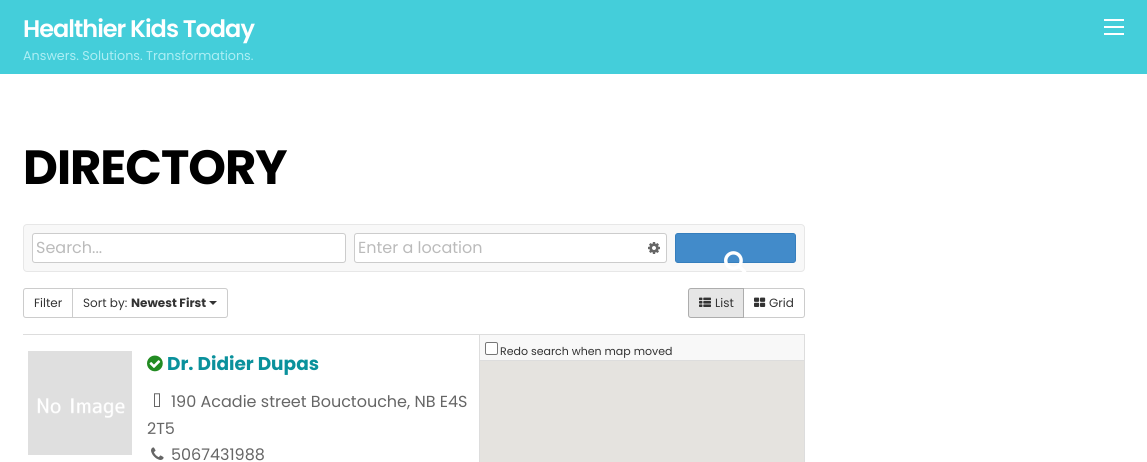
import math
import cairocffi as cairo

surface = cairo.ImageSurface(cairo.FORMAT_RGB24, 1147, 462)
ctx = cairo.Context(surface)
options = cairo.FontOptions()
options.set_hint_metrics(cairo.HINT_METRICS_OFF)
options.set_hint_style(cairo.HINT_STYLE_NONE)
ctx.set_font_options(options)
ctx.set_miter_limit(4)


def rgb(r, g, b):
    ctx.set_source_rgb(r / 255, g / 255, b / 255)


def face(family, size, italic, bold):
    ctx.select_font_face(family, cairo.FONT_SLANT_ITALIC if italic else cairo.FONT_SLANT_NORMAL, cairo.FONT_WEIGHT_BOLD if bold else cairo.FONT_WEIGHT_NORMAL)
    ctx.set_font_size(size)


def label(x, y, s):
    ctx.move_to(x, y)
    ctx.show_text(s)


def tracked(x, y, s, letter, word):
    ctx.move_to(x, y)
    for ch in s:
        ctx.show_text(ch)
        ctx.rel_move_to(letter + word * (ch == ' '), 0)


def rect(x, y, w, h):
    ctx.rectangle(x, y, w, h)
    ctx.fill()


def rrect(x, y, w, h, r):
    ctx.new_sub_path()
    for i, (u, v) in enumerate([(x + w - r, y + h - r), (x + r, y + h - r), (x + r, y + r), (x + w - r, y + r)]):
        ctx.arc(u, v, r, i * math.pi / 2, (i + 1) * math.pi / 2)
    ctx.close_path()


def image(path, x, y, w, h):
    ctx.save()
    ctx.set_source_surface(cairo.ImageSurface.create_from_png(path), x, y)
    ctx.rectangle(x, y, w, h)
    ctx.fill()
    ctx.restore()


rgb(255, 255, 255)
ctx.paint()
rgb(68, 206, 218)
rect(0, 0, 1147, 74)
face('Poppins SemiBold', 24, 0, 0)
rgb(255, 255, 255)
tracked(23, 37, 'Healthier Kids Today', -1, 0)
face('Poppins', 12.75, 0, 0)
rgb(172, 238, 244)
label(23, 60, 'Answers. Solutions. Transformations.')
rgb(255, 255, 255)
rect(1104, 33, 20, 2)
rect(1104, 19, 20, 2)
rect(1104, 26, 20, 2)
face('Poppins', 48, 0, 1)
rgb(0, 0, 0)
tracked(23, 184, 'DIRECTORY', -1, 0)
rgb(248, 248, 248)
rrect(23.5, 224.5, 781, 47, 3.5)
ctx.fill_preserve()
rgb(231, 231, 231)
ctx.set_line_width(1)
ctx.stroke()
rgb(255, 255, 255)
rrect(32.5, 233.5, 313, 29, 2.5)
ctx.fill_preserve()
rgb(204, 204, 204)
ctx.stroke()
face('Poppins', 16, 0, 0)
rgb(187, 187, 187)
label(36, 253, 'Search...')
rgb(255, 255, 255)
rrect(354.5, 233.5, 312, 29, 2.5)
ctx.fill_preserve()
rgb(204, 204, 204)
ctx.stroke()
rgb(187, 187, 187)
label(358, 253, 'Enter a location')
image('image0.png', 648, 242, 12, 12)
rgb(66, 139, 202)
rrect(675.5, 233.5, 120, 29, 2.5)
ctx.fill_preserve()
rgb(53, 126, 189)
ctx.stroke()
image('image1.png', 724, 251, 23, 21)
rgb(221, 221, 221)
rect(23, 334, 782, 1)
ctx.new_path()
ctx.move_to(26, 288.5)
ctx.line_to(72.5, 288.5)
ctx.line_to(72.5, 317.5)
ctx.line_to(26, 317.5)
ctx.curve_to(24.5, 317.5, 23.5, 316.5, 23.5, 315)
ctx.line_to(23.5, 291)
ctx.curve_to(23.5, 289.5, 24.5, 288.5, 26, 288.5)
ctx.close_path()
rgb(204, 204, 204)
ctx.stroke()
face('Poppins', 12, 0, 0)
rgb(51, 51, 51)
label(34, 307, 'Filter')
rgb(255, 255, 255)
ctx.new_path()
ctx.move_to(72.5, 288.5)
ctx.line_to(225, 288.5)
ctx.curve_to(226.5, 288.5, 227.5, 289.5, 227.5, 291)
ctx.line_to(227.5, 315)
ctx.curve_to(227.5, 316.5, 226.5, 317.5, 225, 317.5)
ctx.line_to(72.5, 317.5)
ctx.close_path()
ctx.fill_preserve()
rgb(204, 204, 204)
ctx.stroke()
rgb(51, 51, 51)
label(83, 307, 'Sort by:')
face('Poppins', 12, 0, 1)
label(131, 307, 'Newest First')
ctx.new_path()
ctx.move_to(209, 301)
ctx.line_to(217, 301)
ctx.line_to(213, 305)
ctx.close_path()
ctx.fill()
ctx.new_path()
ctx.move_to(743.5, 288.5)
ctx.line_to(802, 288.5)
ctx.curve_to(803.5, 288.5, 804.5, 289.5, 804.5, 291)
ctx.line_to(804.5, 315)
ctx.curve_to(804.5, 316.5, 803.5, 317.5, 802, 317.5)
ctx.line_to(743.5, 317.5)
ctx.close_path()
rgb(204, 204, 204)
ctx.stroke()
rgb(230, 230, 230)
ctx.new_path()
ctx.move_to(691, 288.5)
ctx.line_to(743.5, 288.5)
ctx.line_to(743.5, 317.5)
ctx.line_to(691, 317.5)
ctx.curve_to(689.5, 317.5, 688.5, 316.5, 688.5, 315)
ctx.line_to(688.5, 291)
ctx.curve_to(688.5, 289.5, 689.5, 288.5, 691, 288.5)
ctx.close_path()
ctx.fill_preserve()
rgb(173, 173, 173)
ctx.stroke()
image('image2.png', 699, 297, 12, 10)
face('Poppins', 12, 0, 0)
rgb(51, 51, 51)
label(715, 307, 'List')
image('image3.png', 754, 297, 12, 10)
label(769, 307, 'Grid')
rgb(248, 248, 248)
rect(480, 335, 324, 25)
rgb(221, 221, 221)
rect(804, 334, 1, 26)
rect(479, 334, 1, 26)
rgb(255, 255, 255)
rrect(485.5, 342.5, 12, 12, 1.5)
ctx.fill_preserve()
rgb(118, 118, 118)
ctx.stroke()
face('Poppins', 11, 0, 0)
rgb(51, 51, 51)
label(500, 355, 'Redo search when map moved')
ctx.rectangle(479.5, 360.5, 325, 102)
rgb(221, 221, 221)
ctx.stroke()
rgb(229, 227, 223)
rect(480, 361, 324, 101)
image('image4.png', 28, 351, 104, 104)
image('image5.png', 147, 355, 16, 17)
face('Poppins', 18.5, 0, 1)
rgb(10, 145, 156)
label(167, 370, 'Dr. Didier Dupas')
image('image6.png', 154, 393, 6, 14)
face('Poppins', 16, 0, 0)
rgb(102, 102, 102)
label(171, 407, '190 Acadie street Bouctouche, NB E4S')
label(147, 434, '2T5')
image('image7.png', 151, 447, 13, 13)
label(171, 460, '5067431988')
surface.write_to_png('render.png')
